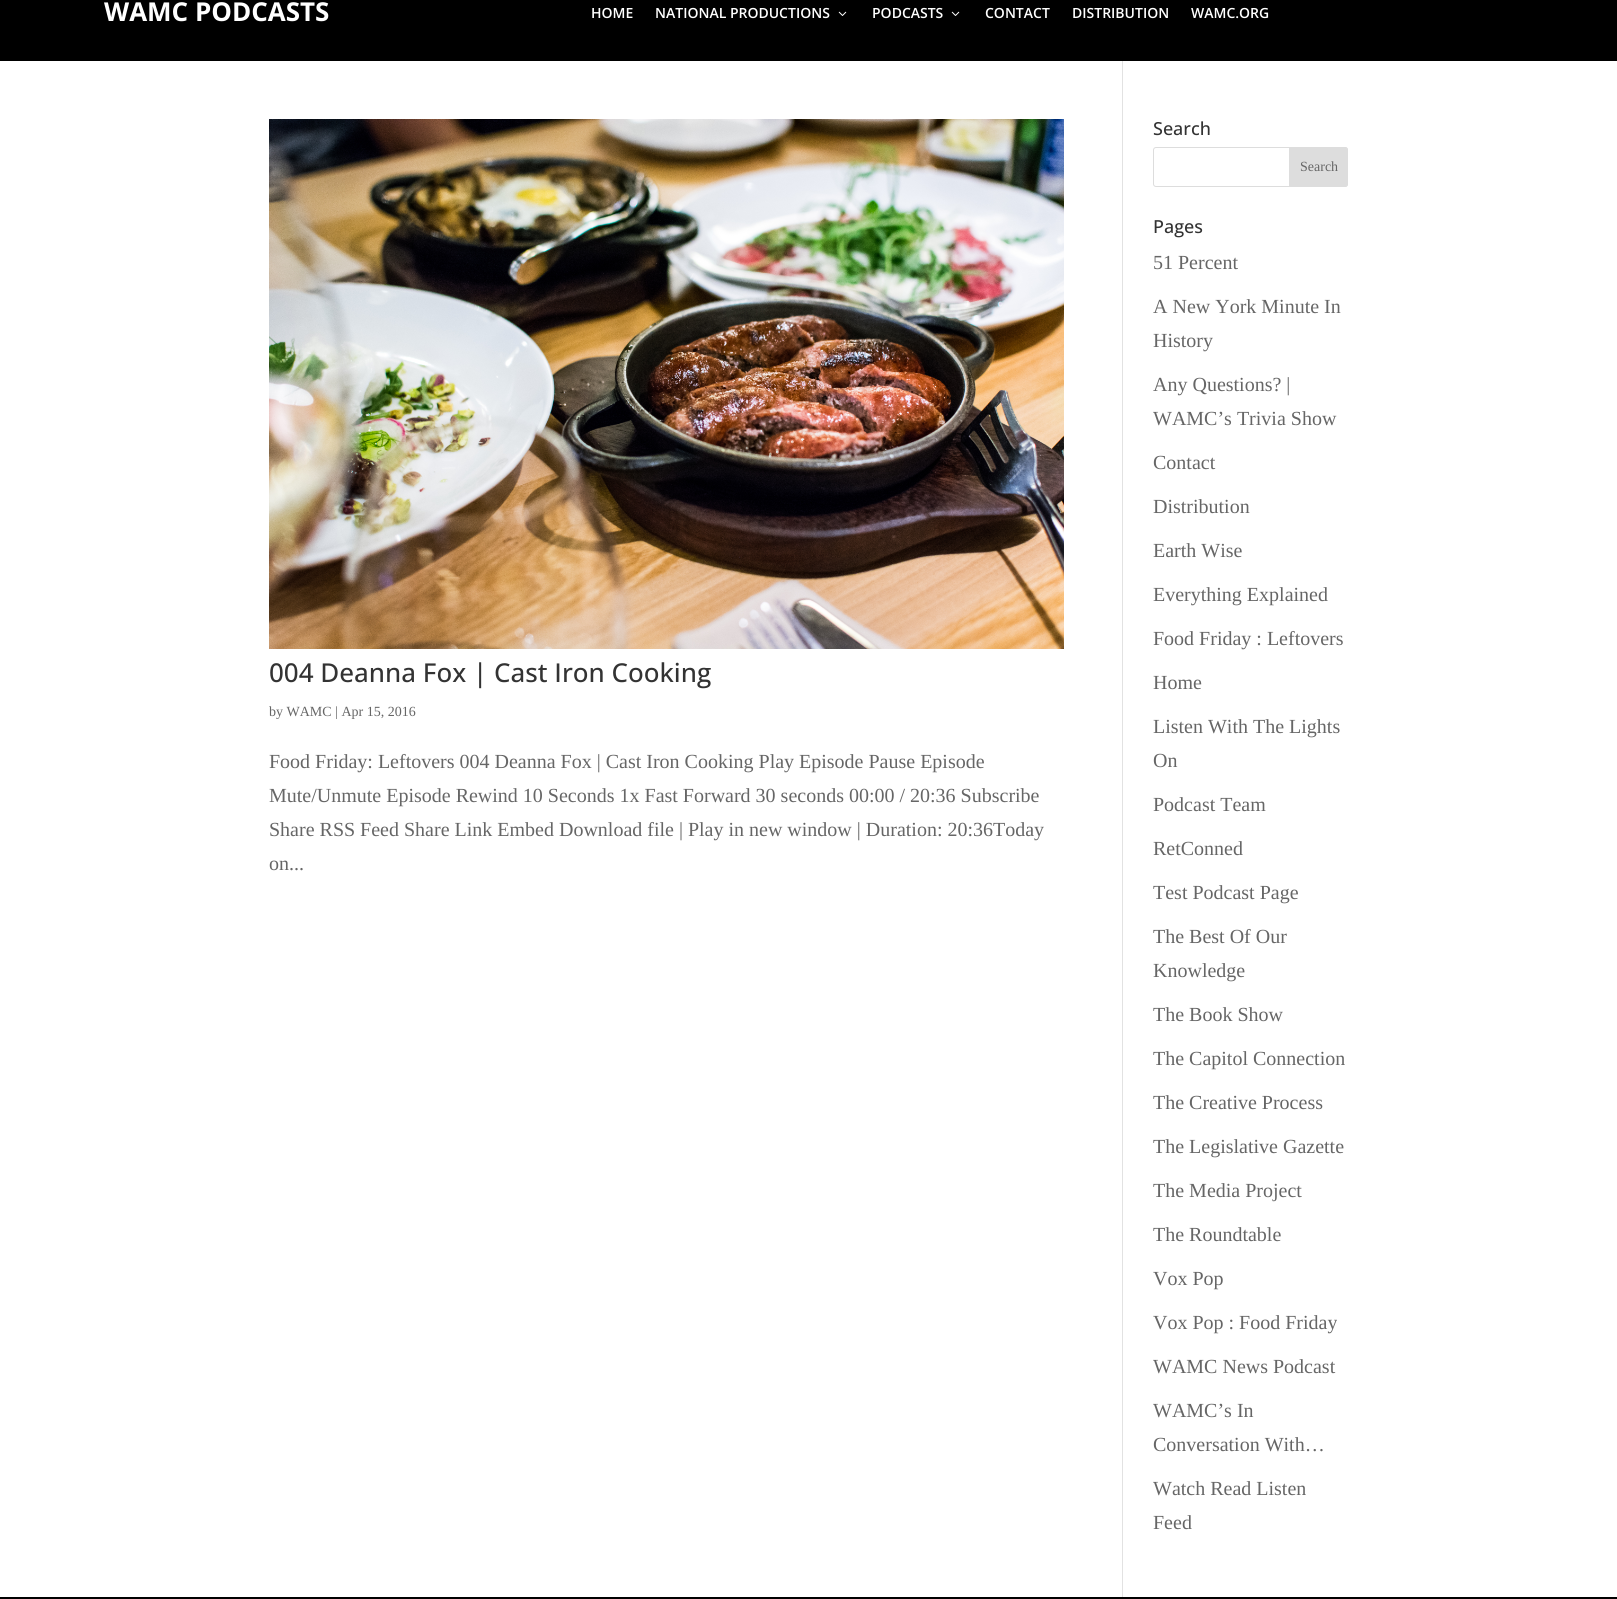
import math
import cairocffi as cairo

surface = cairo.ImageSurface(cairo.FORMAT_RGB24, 1617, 1599)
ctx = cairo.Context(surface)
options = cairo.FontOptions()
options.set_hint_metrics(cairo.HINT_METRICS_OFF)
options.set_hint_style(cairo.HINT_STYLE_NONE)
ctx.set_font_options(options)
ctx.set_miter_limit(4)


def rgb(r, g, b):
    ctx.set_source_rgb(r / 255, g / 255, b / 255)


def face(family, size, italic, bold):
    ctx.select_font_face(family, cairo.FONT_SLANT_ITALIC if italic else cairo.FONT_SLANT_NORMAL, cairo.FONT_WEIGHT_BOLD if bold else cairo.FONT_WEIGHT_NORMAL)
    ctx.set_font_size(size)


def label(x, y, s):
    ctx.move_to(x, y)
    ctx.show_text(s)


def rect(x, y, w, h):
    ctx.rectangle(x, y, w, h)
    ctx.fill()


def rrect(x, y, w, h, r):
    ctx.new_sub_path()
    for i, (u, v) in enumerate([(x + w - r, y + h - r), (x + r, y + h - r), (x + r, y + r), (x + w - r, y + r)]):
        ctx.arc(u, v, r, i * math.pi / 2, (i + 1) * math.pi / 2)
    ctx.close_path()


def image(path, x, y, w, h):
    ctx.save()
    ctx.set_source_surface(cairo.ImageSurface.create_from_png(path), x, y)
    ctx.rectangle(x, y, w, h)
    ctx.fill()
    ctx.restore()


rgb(255, 255, 255)
ctx.paint()
rgb(0, 0, 0)
rect(0, 0, 1617, 61)
face('Open Sans', 26, 0, 1)
rgb(255, 255, 255)
label(104, 21, 'WAMC PODCASTS')
face('Open Sans SemiBold', 14, 0, 0)
label(591, 18, 'HOME')
label(655, 18, 'NATIONAL PRODUCTIONS')
image('image0.png', 838, 11, 9, 5)
label(872, 18, 'PODCASTS')
image('image0.png', 951, 11, 9, 5)
label(985, 18, 'CONTACT')
label(1072, 18, 'DISTRIBUTION')
label(1191, 18, 'WAMC.ORG')
rgb(226, 226, 226)
rect(1122, 61, 1, 1536)
image('image1.png', 269, 119, 795, 530)
face('Open Sans Medium', 26, 0, 0)
rgb(51, 51, 51)
label(269, 682, '004 Deanna Fox | Cast Iron Cooking')
face('Liberation Serif', 14, 0, 0)
rgb(102, 102, 102)
label(269, 716, 'by WAMC | Apr 15, 2016')
face('Liberation Serif', 20, 0, 0)
label(269, 768, 'Food Friday: Leftovers 004 Deanna Fox | Cast Iron Cooking Play Episode Pause Episode')
label(269, 802, 'Mute/Unmute Episode Rewind 10 Seconds 1x Fast Forward 30 seconds 00:00 / 20:36 Subscribe')
label(269, 836, 'Share RSS Feed Share Link Embed Download file | Play in new window | Duration: 20:36Today')
label(269, 870, 'on...')
face('Open Sans Medium', 18, 0, 0)
rgb(51, 51, 51)
label(1153, 135, 'Search')
rrect(1153.5, 147.5, 194, 39, 2.5)
rgb(221, 221, 221)
ctx.set_line_width(1)
ctx.stroke()
ctx.new_path()
ctx.move_to(1289.5, 147.5)
ctx.line_to(1345, 147.5)
ctx.curve_to(1346.5, 147.5, 1347.5, 148.5, 1347.5, 150)
ctx.line_to(1347.5, 184)
ctx.curve_to(1347.5, 185.5, 1346.5, 186.5, 1345, 186.5)
ctx.line_to(1289.5, 186.5)
ctx.close_path()
ctx.fill_preserve()
ctx.stroke()
face('Liberation Serif', 14, 0, 0)
rgb(102, 102, 102)
label(1300, 171, 'Search')
face('Open Sans Medium', 18, 0, 0)
rgb(51, 51, 51)
label(1153, 233, 'Pages')
face('Liberation Serif', 20, 0, 0)
rgb(102, 102, 102)
label(1153, 269, '51 Percent')
label(1153, 313, 'A New York Minute In')
label(1153, 347, 'History')
label(1153, 391, 'Any Questions? |')
label(1153, 425, 'WAMC’s Trivia Show')
label(1153, 469, 'Contact')
label(1153, 513, 'Distribution')
label(1153, 557, 'Earth Wise')
label(1153, 601, 'Everything Explained')
label(1153, 645, 'Food Friday : Leftovers')
label(1153, 689, 'Home')
label(1153, 733, 'Listen With The Lights')
label(1153, 767, 'On')
label(1153, 811, 'Podcast Team')
label(1153, 855, 'RetConned')
label(1153, 899, 'Test Podcast Page')
label(1153, 943, 'The Best Of Our')
label(1153, 977, 'Knowledge')
label(1153, 1021, 'The Book Show')
label(1153, 1065, 'The Capitol Connection')
label(1153, 1109, 'The Creative Process')
label(1153, 1153, 'The Legislative Gazette')
label(1153, 1197, 'The Media Project')
label(1153, 1241, 'The Roundtable')
label(1153, 1285, 'Vox Pop')
label(1153, 1329, 'Vox Pop : Food Friday')
label(1153, 1373, 'WAMC News Podcast')
label(1153, 1417, 'WAMC’s In')
label(1153, 1451, 'Conversation With…')
label(1153, 1495, 'Watch Read Listen')
label(1153, 1529, 'Feed')
rgb(0, 0, 0)
rect(0, 1597, 1617, 2)
surface.write_to_png('render.png')
